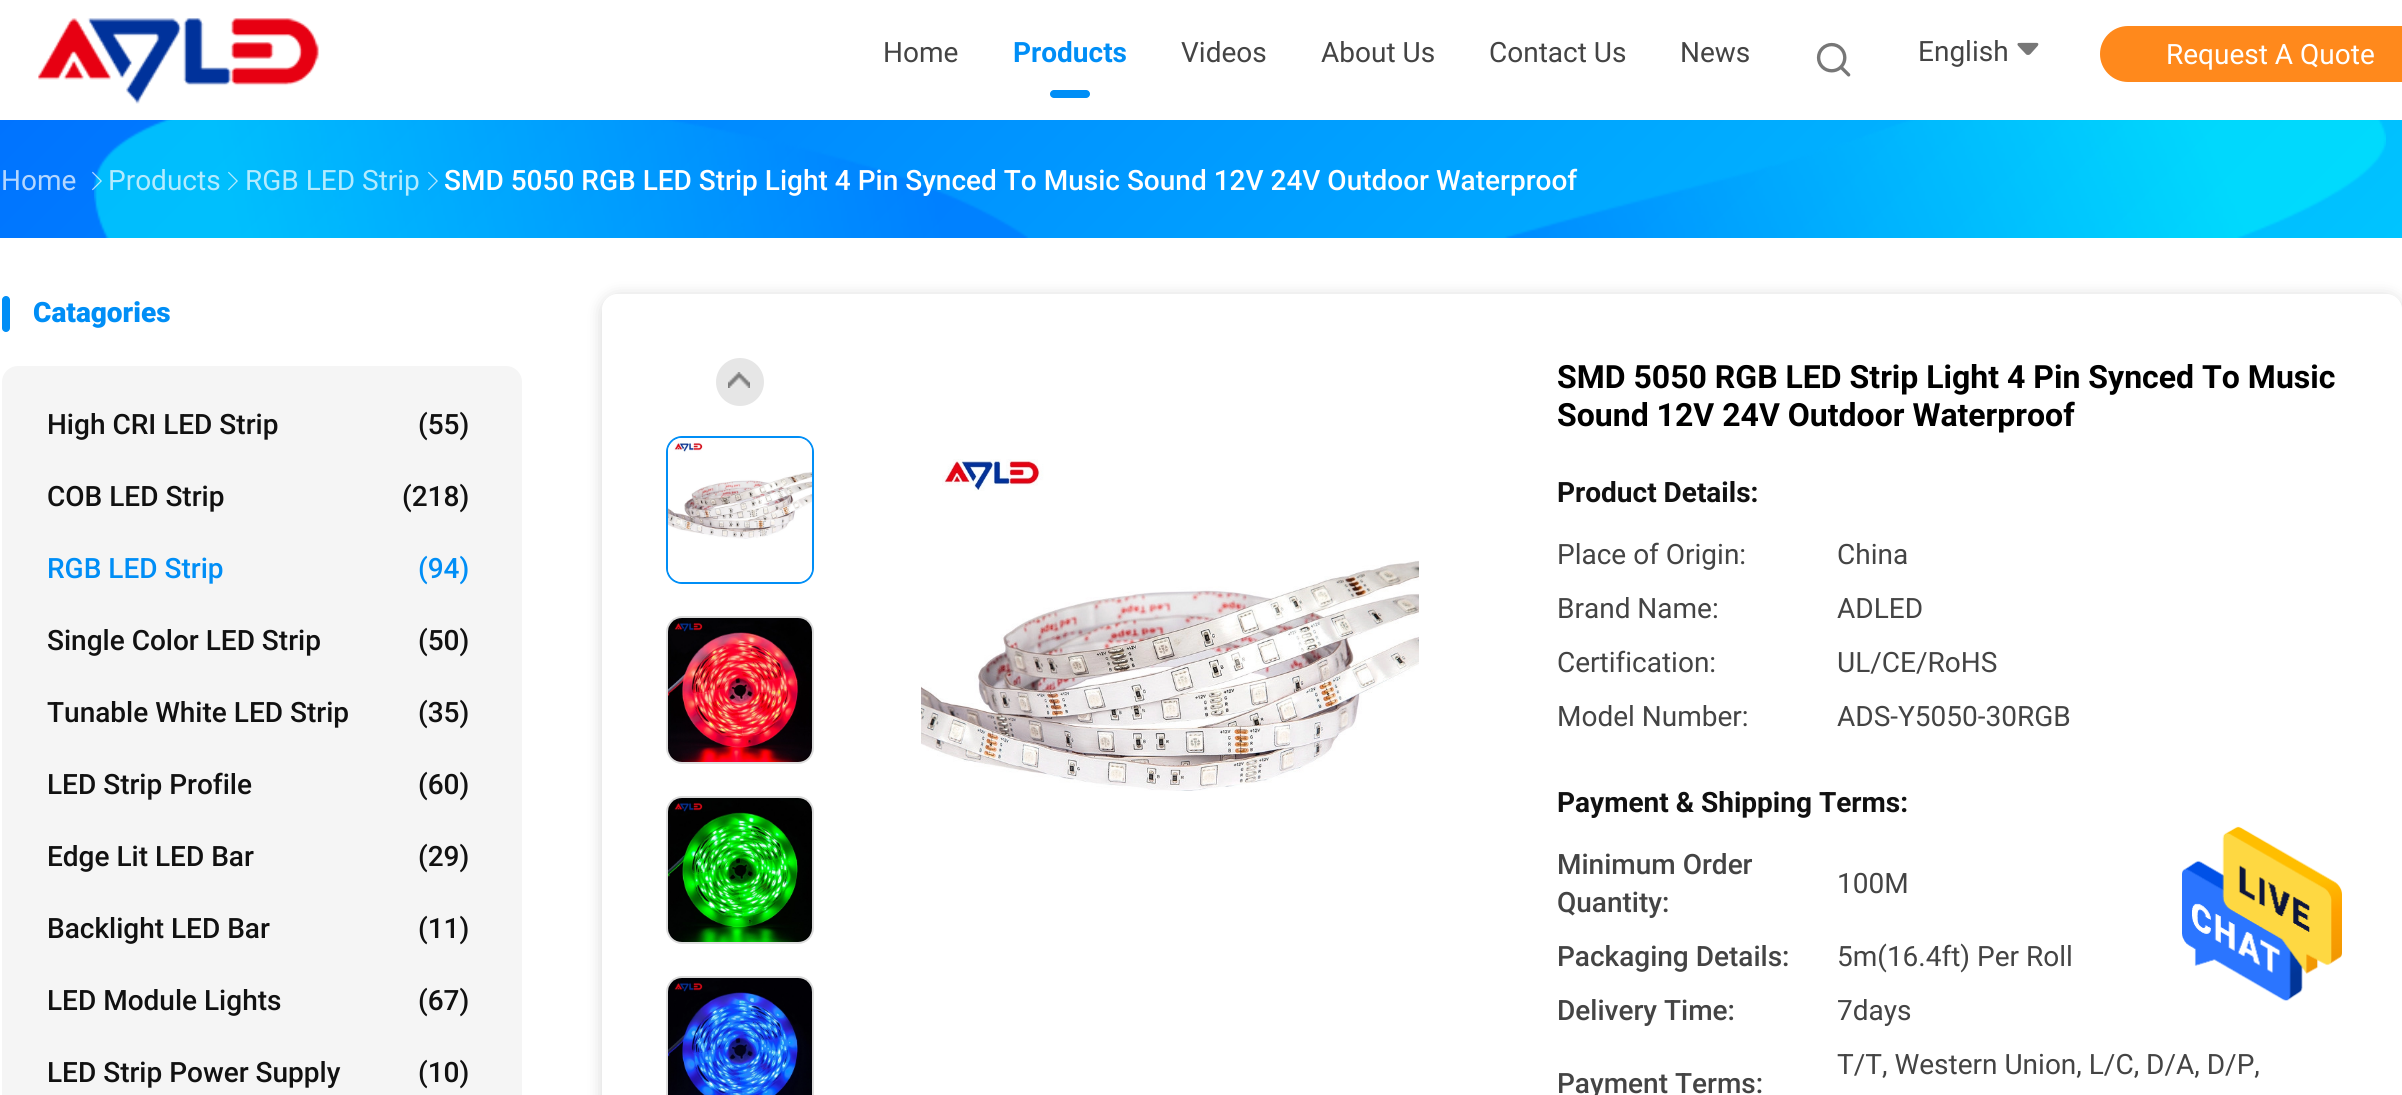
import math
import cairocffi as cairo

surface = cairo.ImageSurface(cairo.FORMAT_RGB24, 2402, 1095)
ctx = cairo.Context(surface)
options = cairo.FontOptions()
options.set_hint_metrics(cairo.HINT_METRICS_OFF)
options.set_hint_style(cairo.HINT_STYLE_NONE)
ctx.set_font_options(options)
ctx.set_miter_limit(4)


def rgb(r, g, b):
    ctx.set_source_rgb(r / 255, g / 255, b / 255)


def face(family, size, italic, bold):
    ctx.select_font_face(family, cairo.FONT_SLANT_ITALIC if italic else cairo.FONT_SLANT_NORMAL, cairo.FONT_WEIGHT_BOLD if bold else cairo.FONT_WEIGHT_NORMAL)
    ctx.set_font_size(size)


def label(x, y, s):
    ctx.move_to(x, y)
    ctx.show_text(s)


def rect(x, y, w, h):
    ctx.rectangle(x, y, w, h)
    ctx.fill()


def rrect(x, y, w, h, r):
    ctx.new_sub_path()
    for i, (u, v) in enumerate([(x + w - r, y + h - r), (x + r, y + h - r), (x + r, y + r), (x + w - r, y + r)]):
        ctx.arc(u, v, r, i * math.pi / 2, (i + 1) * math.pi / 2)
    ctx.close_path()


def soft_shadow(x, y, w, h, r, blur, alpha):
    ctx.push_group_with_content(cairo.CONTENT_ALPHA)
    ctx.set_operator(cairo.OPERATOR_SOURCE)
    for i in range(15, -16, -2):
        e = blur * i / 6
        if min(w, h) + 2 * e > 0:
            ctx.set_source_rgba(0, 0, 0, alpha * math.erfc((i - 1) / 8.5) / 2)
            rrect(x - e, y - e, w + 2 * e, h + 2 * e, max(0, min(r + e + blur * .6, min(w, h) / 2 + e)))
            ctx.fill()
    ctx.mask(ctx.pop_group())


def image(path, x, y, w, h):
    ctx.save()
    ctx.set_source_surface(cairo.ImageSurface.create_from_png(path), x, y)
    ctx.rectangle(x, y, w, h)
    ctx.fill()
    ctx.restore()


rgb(255, 255, 255)
ctx.paint()
image('image0.png', 38, 18, 281, 86)
face('Roboto', 28, 0, 0)
rgb(68, 68, 68)
label(883, 62, 'Home')
face('Roboto', 28, 0, 1)
rgb(0, 142, 246)
label(1013, 62, 'Products')
rrect(1050, 90, 40, 8, 4)
ctx.fill()
face('Roboto', 28, 0, 0)
rgb(68, 68, 68)
label(1181, 62, 'Videos')
label(1321, 62, 'About Us')
label(1489, 62, 'Contact Us')
label(1680, 62, 'News')
image('image1.png', 1816, 42, 35, 35)
label(1918, 61, 'English')
image('image2.png', 2017, 42, 22, 13)
rgb(255, 137, 28)
rrect(2100, 26, 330, 56, 28)
ctx.fill()
rgb(255, 255, 255)
label(2166, 64, 'Request A Quote')
gradient = cairo.LinearGradient(571, -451, 1831, 809)
gradient.add_color_stop_rgba(0, 0, 0.451, 1, 1)
gradient.add_color_stop_rgba(1, 0, 0.769, 1, 1)
ctx.set_source(gradient)
rect(0, 120, 2402, 118)
image('image3.png', 94, 120, 934, 118)
image('image4.png', 1505, 120, 881, 118)
rgb(179, 214, 255)
label(1, 190, 'Home')
image('image5.png', 92, 171, 10, 20)
rgb(179, 235, 254)
label(108, 190, 'Products')
image('image6.png', 228, 171, 10, 20)
label(245, 190, 'RGB LED Strip')
image('image7.png', 428, 171, 10, 20)
face('Roboto Medium', 28, 0, 0)
rgb(255, 255, 255)
label(444, 190, 'SMD 5050 RGB LED Strip Light 4 Pin Synced To Music Sound 12V 24V Outdoor Waterproof')
rgb(0, 142, 246)
rrect(2, 296, 8, 36, 4)
ctx.fill()
face('Roboto Black', 28, 0, 0)
label(33, 322, 'Catagories')
rgb(245, 245, 245)
rrect(2, 366, 520, 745, 16)
ctx.fill()
face('Roboto Medium', 28, 0, 0)
rgb(17, 17, 17)
label(47, 434, 'High CRI LED Strip')
label(418, 434, '(55)')
label(47, 506, 'COB LED Strip')
label(402, 506, '(218)')
rgb(0, 142, 246)
label(47, 578, 'RGB LED Strip')
label(418, 578, '(94)')
rgb(17, 17, 17)
label(47, 650, 'Single Color LED Strip')
label(418, 650, '(50)')
label(47, 722, 'Tunable White LED Strip')
label(418, 722, '(35)')
label(47, 794, 'LED Strip Profile')
label(418, 794, '(60)')
label(47, 866, 'Edge Lit LED Bar')
label(418, 866, '(29)')
label(47, 938, 'Backlight LED Bar')
label(418, 938, '(11)')
label(47, 1010, 'LED Module Lights')
label(418, 1010, '(67)')
label(47, 1082, 'LED Strip Power Supply')
label(418, 1082, '(10)')
ctx.save()
ctx.set_fill_rule(cairo.FILL_RULE_EVEN_ODD)
ctx.new_path()
ctx.move_to(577, 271)
ctx.line_to(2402, 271)
ctx.line_to(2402, 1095)
ctx.line_to(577, 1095)
ctx.close_path()
ctx.move_to(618, 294)
ctx.line_to(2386, 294)
ctx.curve_to(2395, 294, 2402, 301, 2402, 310)
ctx.line_to(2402, 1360)
ctx.curve_to(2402, 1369, 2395, 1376, 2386, 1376)
ctx.line_to(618, 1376)
ctx.curve_to(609, 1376, 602, 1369, 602, 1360)
ctx.line_to(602, 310)
ctx.curve_to(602, 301, 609, 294, 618, 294)
ctx.close_path()
ctx.clip()
rgb(0, 0, 0)
soft_shadow(602, 296, 1800, 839, 16, 8, 0.16)
ctx.restore()
rgb(230, 230, 230)
ctx.arc(740, 382, 24, 0, 2 * math.pi)
ctx.fill()
image('image8.png', 728, 372, 22, 16)
rrect(667, 437, 146, 146, 15)
rgb(0, 142, 246)
ctx.stroke()
image('image9.png', 668, 438, 144, 144)
rrect(667, 617, 146, 146, 15)
rgb(221, 221, 221)
ctx.stroke()
image('image10.png', 668, 618, 144, 144)
rrect(667, 797, 146, 146, 15)
ctx.stroke()
image('image11.png', 668, 798, 144, 144)
rrect(667, 977, 146, 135, 15)
ctx.stroke()
image('image12.png', 668, 978, 144, 117)
image('image13.png', 921, 459, 498, 332)
face('Roboto', 32, 0, 1)
rgb(0, 0, 0)
label(1557, 388, 'SMD 5050 RGB LED Strip Light 4 Pin Synced To Music')
label(1557, 426, 'Sound 12V 24V Outdoor Waterproof')
face('Roboto', 28, 0, 1)
rgb(17, 17, 17)
label(1557, 502, 'Product Details:')
face('Roboto', 28, 0, 0)
rgb(68, 68, 68)
label(1557, 564, 'Place of Origin:')
label(1837, 564, 'China')
label(1557, 618, 'Brand Name:')
label(1837, 618, 'ADLED')
label(1557, 672, 'Certification:')
label(1837, 672, 'UL/CE/RoHS')
label(1557, 726, 'Model Number:')
label(1837, 726, 'ADS-Y5050-30RGB')
face('Roboto', 28, 0, 1)
rgb(17, 17, 17)
label(1557, 812, 'Payment & Shipping Terms:')
face('Roboto Medium', 28, 0, 0)
rgb(68, 68, 68)
label(1557, 874, 'Minimum Order')
label(1557, 912, 'Quantity:')
face('Roboto', 28, 0, 0)
label(1837, 893, '100M')
face('Roboto Medium', 28, 0, 0)
label(1557, 966, 'Packaging Details:')
face('Roboto', 28, 0, 0)
label(1837, 966, '5m(16.4ft) Per Roll')
face('Roboto Medium', 28, 0, 0)
label(1557, 1020, 'Delivery Time:')
face('Roboto', 28, 0, 0)
label(1837, 1020, '7days')
label(1837, 1074, 'T/T, Western Union, L/C, D/A, D/P,')
face('Roboto Medium', 28, 0, 0)
label(1557, 1093, 'Payment Terms:')
image('image14.png', 2182, 826, 160, 175)
surface.write_to_png('render.png')
